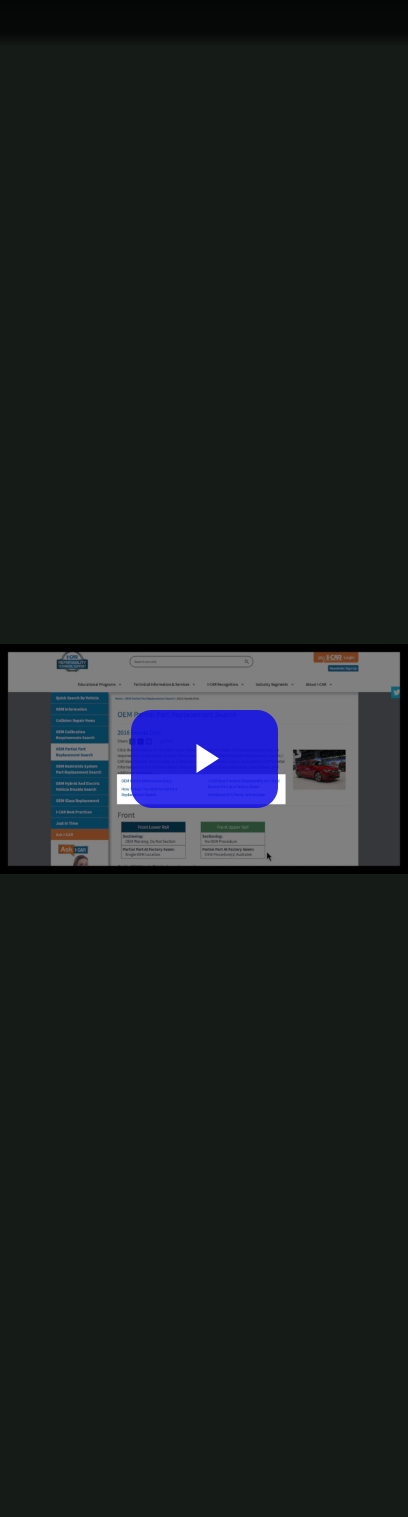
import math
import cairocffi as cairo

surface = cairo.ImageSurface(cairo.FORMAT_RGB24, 408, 1517)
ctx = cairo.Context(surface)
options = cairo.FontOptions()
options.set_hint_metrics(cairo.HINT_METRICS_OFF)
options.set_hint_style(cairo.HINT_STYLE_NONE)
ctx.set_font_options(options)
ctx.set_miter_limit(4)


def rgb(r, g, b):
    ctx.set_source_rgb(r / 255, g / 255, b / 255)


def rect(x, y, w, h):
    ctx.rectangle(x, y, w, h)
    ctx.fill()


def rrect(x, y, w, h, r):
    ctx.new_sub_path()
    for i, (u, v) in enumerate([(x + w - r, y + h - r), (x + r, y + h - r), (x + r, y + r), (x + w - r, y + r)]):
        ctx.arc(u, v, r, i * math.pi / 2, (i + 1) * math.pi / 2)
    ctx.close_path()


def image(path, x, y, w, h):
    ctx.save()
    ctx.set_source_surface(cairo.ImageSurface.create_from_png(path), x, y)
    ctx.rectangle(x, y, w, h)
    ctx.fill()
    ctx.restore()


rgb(21, 27, 23)
ctx.paint()
gradient = cairo.LinearGradient(204, 0, 204, 47)
gradient.add_color_stop_rgba(0, 0.016, 0.02, 0.02, 1)
gradient.add_color_stop_rgba(0.3, 0.024, 0.031, 0.027, 1)
gradient.add_color_stop_rgba(0.7, 0.024, 0.031, 0.027, 1)
gradient.add_color_stop_rgba(1, 0.082, 0.106, 0.09, 1)
ctx.set_source(gradient)
rect(0, 0, 408, 45)
image('image0.png', 0, 644, 408, 230)
ctx.set_source_rgba(0.063, 0.051, 0.91, 0.85)
rrect(131, 710, 147, 98, 21)
ctx.fill()
rgb(255, 255, 255)
ctx.new_path()
ctx.move_to(196.5, 744)
ctx.line_to(196.5, 773)
ctx.line_to(219, 758.5)
ctx.close_path()
ctx.fill()
surface.write_to_png('render.png')
